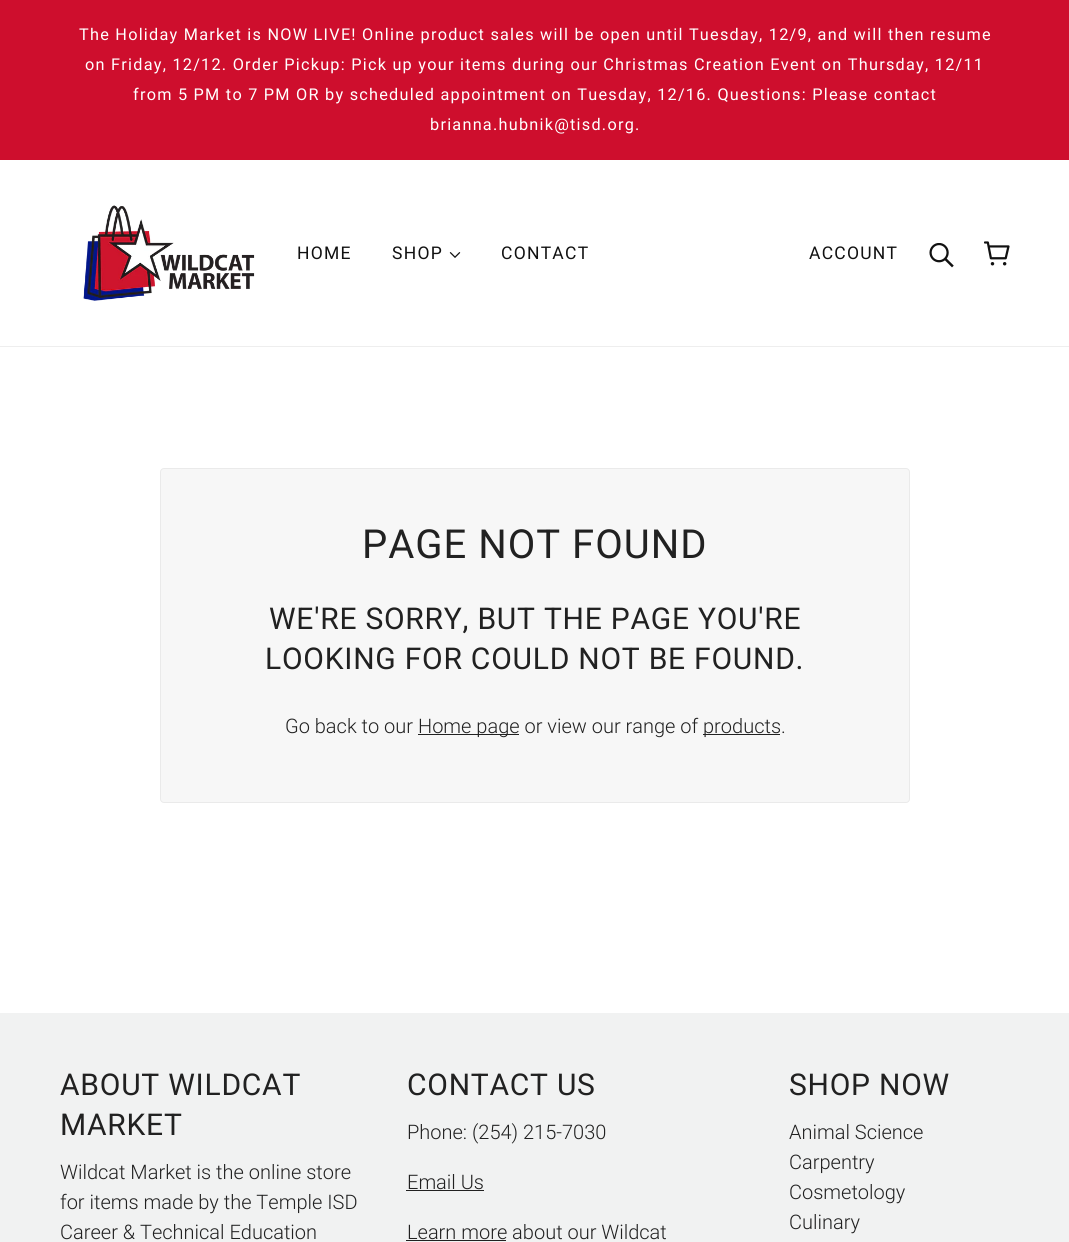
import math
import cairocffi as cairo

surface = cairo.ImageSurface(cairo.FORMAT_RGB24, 1069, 1242)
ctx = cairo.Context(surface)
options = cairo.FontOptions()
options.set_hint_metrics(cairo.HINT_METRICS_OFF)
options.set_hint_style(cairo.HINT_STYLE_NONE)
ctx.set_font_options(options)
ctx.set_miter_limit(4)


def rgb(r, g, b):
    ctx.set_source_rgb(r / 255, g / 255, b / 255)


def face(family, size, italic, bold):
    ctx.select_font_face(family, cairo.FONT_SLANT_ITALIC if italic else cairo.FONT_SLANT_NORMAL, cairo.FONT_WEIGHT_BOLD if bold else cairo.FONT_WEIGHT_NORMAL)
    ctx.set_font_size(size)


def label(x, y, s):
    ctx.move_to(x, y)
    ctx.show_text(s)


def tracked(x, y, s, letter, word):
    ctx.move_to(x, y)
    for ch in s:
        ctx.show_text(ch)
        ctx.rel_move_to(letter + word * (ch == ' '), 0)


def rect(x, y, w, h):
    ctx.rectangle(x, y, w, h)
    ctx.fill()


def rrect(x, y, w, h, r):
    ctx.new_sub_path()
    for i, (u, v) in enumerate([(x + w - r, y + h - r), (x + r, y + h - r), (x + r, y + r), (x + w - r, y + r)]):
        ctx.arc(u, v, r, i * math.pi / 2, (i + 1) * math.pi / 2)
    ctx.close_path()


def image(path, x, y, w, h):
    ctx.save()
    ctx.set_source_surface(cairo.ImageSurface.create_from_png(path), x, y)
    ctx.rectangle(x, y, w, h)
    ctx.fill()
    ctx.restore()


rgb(255, 255, 255)
ctx.paint()
rgb(206, 14, 45)
rect(0, 0, 1069, 160)
face('Roboto', 16.25, 0, 0)
rgb(255, 255, 255)
tracked(79, 40, 'The Holiday Market is NOW LIVE! Online product sales will be open until Tuesday, 12/9, and will then resume', 1.25, 0)
tracked(85, 70, 'on Friday, 12/12. Order Pickup: Pick up your items during our Christmas Creation Event on Thursday, 12/11', 1.25, 0)
tracked(133, 100, 'from 5 PM to 7 PM OR by scheduled appointment on Tuesday, 12/16. Questions: Please contact', 1.25, 0)
tracked(430, 130, 'brianna.hubnik@tisd.org.', 1.25, 0)
rgb(238, 238, 238)
rect(0, 346, 1069, 1)
image('image0.png', 83, 205, 172, 96)
face('Roboto', 17.5, 0, 0)
rgb(17, 17, 17)
tracked(297, 259, 'HOME', 1.25, 0)
tracked(392, 259, 'SHOP', 1.25, 0)
image('image1.png', 449, 252, 12, 6)
tracked(501, 259, 'CONTACT', 1.25, 0)
tracked(809, 259, 'ACCOUNT', 1.25, 0)
image('image2.png', 929, 243, 25, 25)
image('image3.png', 984, 241, 26, 25)
rgb(247, 247, 247)
rrect(160.5, 468.5, 749, 334, 3.5)
ctx.fill_preserve()
rgb(234, 234, 234)
ctx.set_line_width(1)
ctx.stroke()
face('Roboto', 40, 0, 0)
rgb(33, 33, 33)
tracked(362, 558, 'PAGE NOT FOUND', 1, 0)
face('Roboto', 30, 0, 0)
tracked(269, 629, 'WE\'RE SORRY, BUT THE PAGE YOU\'RE', 0.75, 0)
tracked(265, 669, 'LOOKING FOR COULD NOT BE FOUND.', 0.75, 0)
face('Roboto Light', 20, 0, 0)
label(285, 733, 'Go back to our')
rect(418, 734, 101, 1)
label(418, 733, 'Home page or view our range of')
rect(703, 734, 77, 1)
label(703, 733, 'products.')
rgb(241, 242, 242)
rect(0, 1013, 1069, 229)
face('Roboto', 30, 0, 0)
rgb(33, 33, 33)
tracked(60, 1095, 'ABOUT WILDCAT', 0.75, 0)
tracked(60, 1135, 'MARKET', 0.75, 0)
face('Roboto Light', 20, 0, 0)
label(60, 1179, 'Wildcat Market is the online store')
label(60, 1209, 'for items made by the Temple ISD')
label(60, 1239, 'Career & Technical Education')
face('Roboto', 30, 0, 0)
tracked(407, 1095, 'CONTACT US', 0.75, 0)
face('Roboto Light', 20, 0, 0)
label(407, 1139, 'Phone: (254) 215-7030')
label(407, 1189, 'Email Us')
rect(406, 1190, 78, 1)
label(407, 1239, 'Learn more about our Wildcat')
rect(406, 1240, 100, 1)
face('Roboto', 30, 0, 0)
tracked(789, 1095, 'SHOP NOW', 0.75, 0)
face('Roboto Light', 20, 0, 0)
label(789, 1139, 'Animal Science')
label(789, 1169, 'Carpentry')
label(789, 1199, 'Cosmetology')
label(789, 1229, 'Culinary')
surface.write_to_png('render.png')
